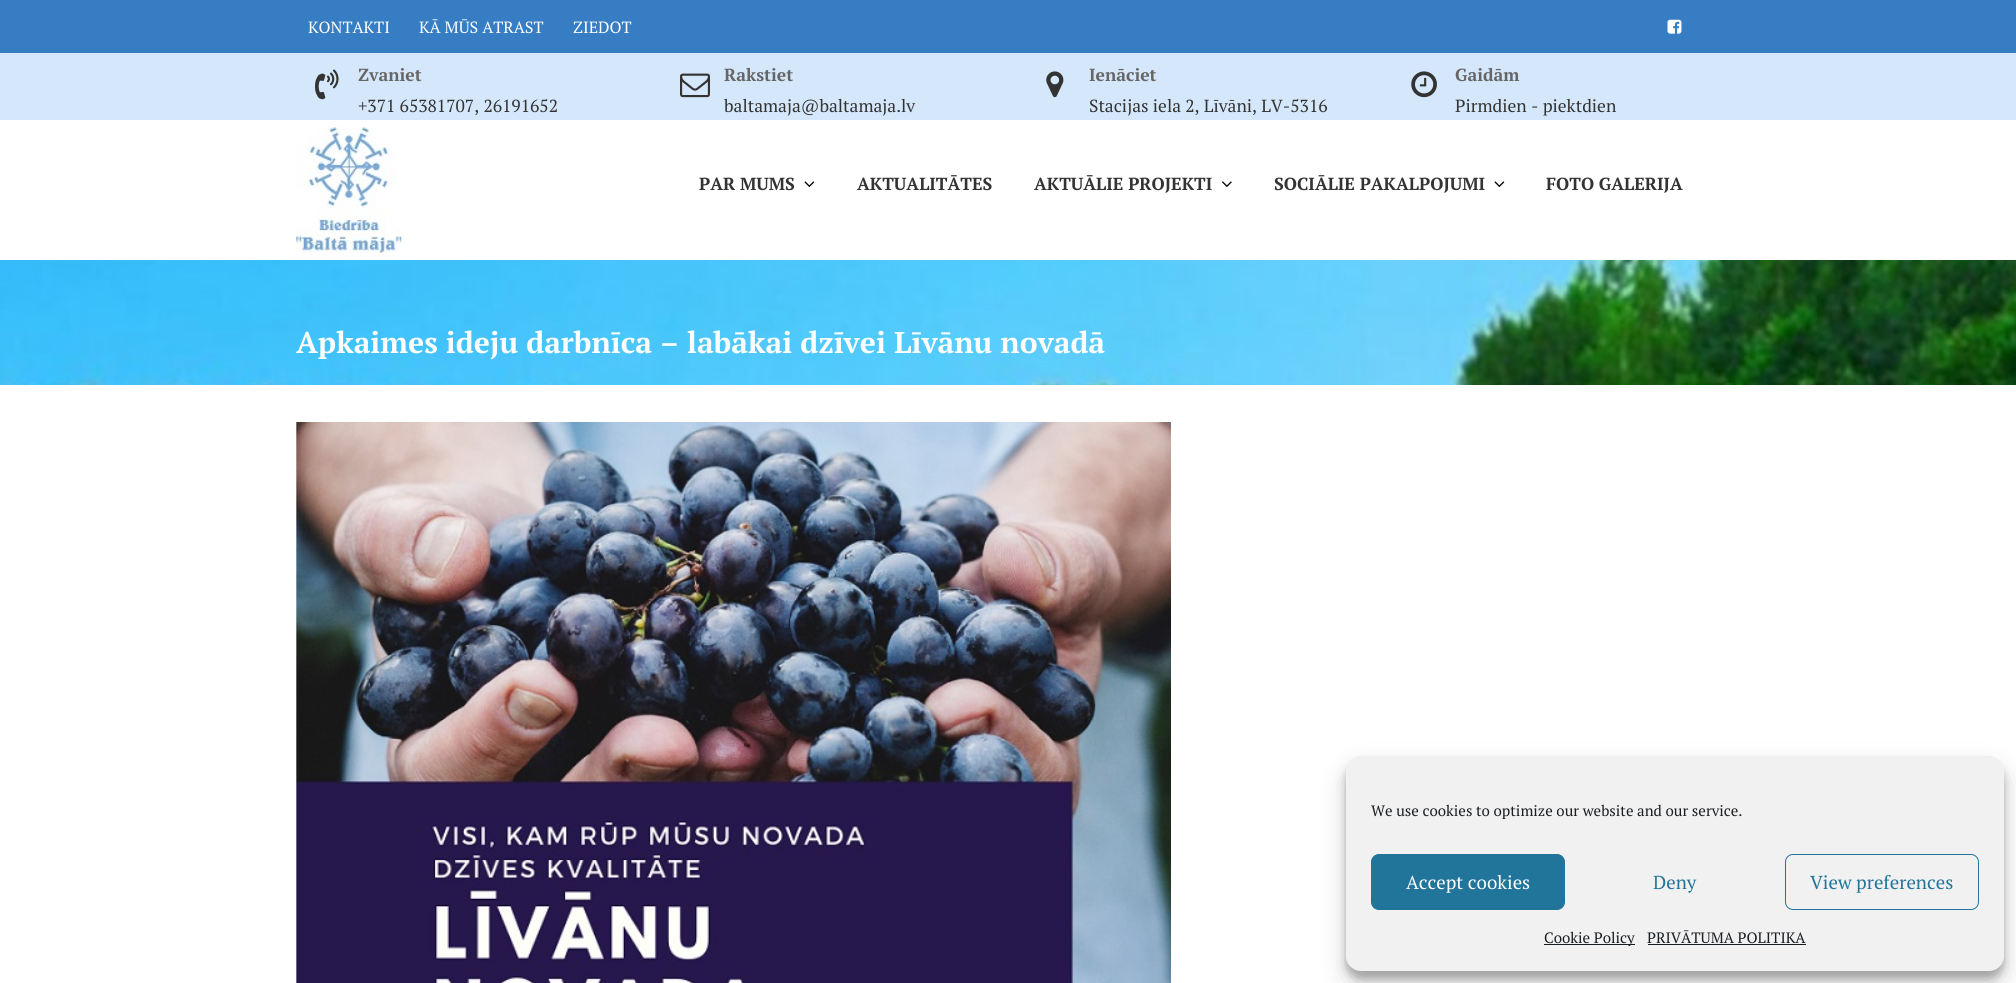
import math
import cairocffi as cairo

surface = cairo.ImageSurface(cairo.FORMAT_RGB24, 2016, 983)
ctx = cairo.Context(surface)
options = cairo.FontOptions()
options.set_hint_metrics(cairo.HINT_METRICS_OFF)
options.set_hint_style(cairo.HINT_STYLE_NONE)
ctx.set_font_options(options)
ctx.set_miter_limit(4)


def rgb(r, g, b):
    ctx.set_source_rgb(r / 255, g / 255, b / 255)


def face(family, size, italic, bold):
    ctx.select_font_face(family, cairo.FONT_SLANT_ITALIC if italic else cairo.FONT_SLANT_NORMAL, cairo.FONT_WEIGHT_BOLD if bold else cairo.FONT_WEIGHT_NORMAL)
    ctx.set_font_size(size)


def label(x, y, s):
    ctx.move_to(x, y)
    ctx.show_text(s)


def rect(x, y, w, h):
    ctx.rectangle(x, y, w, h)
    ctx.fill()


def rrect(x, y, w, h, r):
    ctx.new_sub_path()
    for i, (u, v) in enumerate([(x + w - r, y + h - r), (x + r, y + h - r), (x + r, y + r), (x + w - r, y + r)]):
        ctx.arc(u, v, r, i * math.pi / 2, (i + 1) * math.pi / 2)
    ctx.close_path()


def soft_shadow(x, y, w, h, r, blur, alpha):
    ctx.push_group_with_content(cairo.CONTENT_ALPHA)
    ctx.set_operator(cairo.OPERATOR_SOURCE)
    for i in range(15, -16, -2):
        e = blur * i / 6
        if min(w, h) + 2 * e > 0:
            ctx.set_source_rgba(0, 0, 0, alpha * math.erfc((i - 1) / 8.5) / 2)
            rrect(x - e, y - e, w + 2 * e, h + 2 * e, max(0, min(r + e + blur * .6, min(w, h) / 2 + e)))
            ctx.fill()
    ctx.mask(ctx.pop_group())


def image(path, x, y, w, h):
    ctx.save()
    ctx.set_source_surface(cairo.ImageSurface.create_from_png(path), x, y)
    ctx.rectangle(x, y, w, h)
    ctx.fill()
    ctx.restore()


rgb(255, 255, 255)
ctx.paint()
rgb(54, 125, 196)
rect(0, 0, 2016, 53)
face('PT Serif', 16.25, 0, 0)
rgb(255, 255, 255)
label(308, 33, 'KONTAKTI')
label(419, 33, 'KĀ MŪS ATRAST')
label(573, 33, 'ZIEDOT')
image('image0.png', 1667, 19, 15, 15)
rgb(213, 232, 251)
rect(0, 53, 2016, 67)
image('image1.png', 315, 69, 24, 31)
face('PT Serif', 17.5, 0, 1)
rgb(102, 102, 102)
label(358, 81, 'Zvaniet')
face('PT Serif', 17.5, 0, 0)
rgb(51, 51, 51)
label(358, 112, '+371 65381707, 26191652')
image('image2.png', 680, 73, 30, 25)
face('PT Serif', 17.5, 0, 1)
rgb(102, 102, 102)
label(724, 81, 'Rakstiet')
face('PT Serif', 17.5, 0, 0)
rgb(51, 51, 51)
label(724, 112, 'baltamaja@baltamaja.lv')
image('image3.png', 1046, 71, 18, 27)
face('PT Serif', 17.5, 0, 1)
rgb(102, 102, 102)
label(1089, 81, 'Ienāciet')
face('PT Serif', 17.5, 0, 0)
rgb(51, 51, 51)
label(1089, 112, 'Stacijas iela 2, Līvāni, LV-5316')
image('image4.png', 1411, 71, 26, 27)
face('PT Serif', 17.5, 0, 1)
rgb(102, 102, 102)
label(1455, 81, 'Gaidām')
face('PT Serif', 17.5, 0, 0)
rgb(51, 51, 51)
label(1455, 112, 'Pirmdien - piektdien')
image('image5.png', 296, 127, 106, 126)
face('PT Serif', 17.5, 0, 1)
label(699, 190, 'PAR MUMS')
image('image6.png', 804, 181, 11, 6)
label(857, 190, 'AKTUALITĀTES')
label(1034, 190, 'AKTUĀLIE PROJEKTI')
image('image7.png', 1222, 181, 10, 6)
label(1274, 190, 'SOCIĀLIE PAKALPOJUMI')
image('image6.png', 1494, 181, 11, 6)
label(1546, 190, 'FOTO GALERIJA')
image('image8.png', 0, 260, 2016, 125)
face('PT Serif', 30, 0, 1)
rgb(255, 255, 255)
label(296, 353, 'Apkaimes ideju darbnīca – labākai dzīvei Līvānu novadā')
image('image9.png', 296, 422, 875, 561)
rgb(0, 0, 0)
soft_shadow(1346, 764, 658, 215, 15, 4, 0.23)
soft_shadow(1346, 769, 658, 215, 15, 12.5, 0.19)
rgb(241, 241, 241)
rrect(1346, 756, 658, 215, 15)
ctx.fill()
face('PT Serif', 15, 0, 0)
rgb(25, 30, 35)
label(1371, 816, 'We use cookies to optimize our website and our service.')
rgb(33, 117, 155)
rrect(1371.5, 854.5, 193, 55, 7.5)
ctx.fill_preserve()
ctx.set_line_width(1)
ctx.stroke()
face('PT Serif', 18.75, 0, 0)
rgb(255, 255, 255)
label(1406, 889, 'Accept cookies')
rgb(33, 117, 155)
label(1653, 889, 'Deny')
rrect(1785.5, 854.5, 193, 55, 7.5)
ctx.stroke()
label(1810, 889, 'View preferences')
rgb(25, 30, 35)
rect(1544, 944, 91, 1)
face('PT Serif', 15, 0, 0)
label(1544, 943, 'Cookie Policy')
label(1647, 943, 'PRIVĀTUMA POLITIKA')
rect(1648, 944, 158, 1)
surface.write_to_png('render.png')
